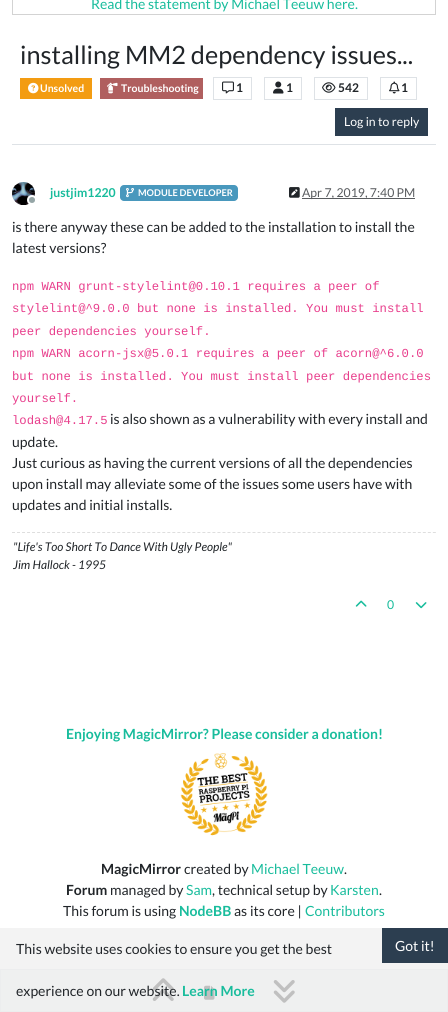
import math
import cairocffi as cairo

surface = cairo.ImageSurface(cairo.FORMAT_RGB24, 448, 1012)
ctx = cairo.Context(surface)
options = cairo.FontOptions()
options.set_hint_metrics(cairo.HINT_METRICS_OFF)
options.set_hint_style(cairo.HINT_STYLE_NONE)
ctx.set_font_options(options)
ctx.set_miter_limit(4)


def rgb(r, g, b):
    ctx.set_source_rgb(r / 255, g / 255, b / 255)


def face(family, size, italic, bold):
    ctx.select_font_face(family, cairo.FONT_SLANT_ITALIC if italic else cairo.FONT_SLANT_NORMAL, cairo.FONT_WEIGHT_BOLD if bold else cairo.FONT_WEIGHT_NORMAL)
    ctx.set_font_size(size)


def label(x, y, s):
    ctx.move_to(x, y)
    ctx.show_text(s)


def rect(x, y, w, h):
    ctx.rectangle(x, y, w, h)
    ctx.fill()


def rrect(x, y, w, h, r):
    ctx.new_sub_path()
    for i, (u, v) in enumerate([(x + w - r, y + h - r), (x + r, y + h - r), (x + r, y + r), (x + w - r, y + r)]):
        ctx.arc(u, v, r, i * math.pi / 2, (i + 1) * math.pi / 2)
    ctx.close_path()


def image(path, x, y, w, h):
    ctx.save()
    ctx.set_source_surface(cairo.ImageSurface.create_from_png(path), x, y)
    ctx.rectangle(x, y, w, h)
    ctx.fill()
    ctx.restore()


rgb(255, 255, 255)
ctx.paint()
ctx.rectangle(12.5, -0.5, 423, 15)
rgb(211, 211, 211)
ctx.set_line_width(1)
ctx.stroke()
face('Lato', 14, 0, 0)
rgb(24, 188, 156)
label(91, 9, 'Read the statement by Michael Teeuw here.')
rgb(222, 226, 230)
rect(12, 144, 424, 1)
face('Lato', 25.25, 0, 0)
rgb(33, 37, 41)
label(20, 64, 'installing MM2 dependency issues...')
rgb(243, 156, 18)
rect(20, 78, 72, 21)
image('image0.png', 28, 82, 11, 12)
face('Lato', 10.5, 0, 1)
rgb(255, 255, 255)
label(40, 92, 'Unsolved')
rgb(176, 95, 95)
rect(100, 78, 103, 21)
image('image1.png', 107, 82, 11, 12)
rgb(255, 255, 255)
label(121, 92, 'Troubleshooting')
ctx.rectangle(213.5, 77.5, 38, 22)
rgb(222, 226, 230)
ctx.stroke()
image('image2.png', 222, 81, 12, 13)
face('Lato', 12, 0, 1)
rgb(33, 37, 41)
label(236, 92, '1')
ctx.rectangle(264.5, 77.5, 37, 22)
rgb(222, 226, 230)
ctx.stroke()
image('image3.png', 273, 81, 11, 13)
rgb(33, 37, 41)
label(286, 92, '1')
ctx.rectangle(314.5, 77.5, 53, 22)
rgb(222, 226, 230)
ctx.stroke()
image('image4.png', 322, 82, 14, 11)
rgb(33, 37, 41)
label(338, 92, '542')
ctx.rectangle(380.5, 77.5, 36, 22)
rgb(222, 226, 230)
ctx.stroke()
image('image5.png', 389, 81, 11, 13)
rgb(33, 37, 41)
label(401, 92, '1')
rgb(44, 62, 80)
rect(335, 108, 93, 28)
face('Lato', 12.25, 0, 0)
rgb(255, 255, 255)
label(344, 126, 'Log in to reply')
image('image6.png', 12, 182, 23, 23)
rgb(149, 165, 166)
ctx.arc(32, 200, 4, 0, 2 * math.pi)
ctx.fill_preserve()
rgb(255, 255, 255)
ctx.set_line_width(2)
ctx.stroke()
face('Lato', 12.25, 0, 1)
rgb(24, 188, 156)
label(50, 197, 'justjim1220')
rgb(73, 152, 189)
rrect(120, 185, 118, 16, 4)
ctx.fill()
image('image7.png', 126, 188, 8, 10)
face('Lato', 9.25, 0, 1)
rgb(255, 255, 255)
label(138, 196, 'MODULE DEVELOPER')
image('image8.png', 289, 187, 11, 11)
rgb(89, 92, 95)
rect(302, 198, 113, 1)
face('Lato', 12.25, 0, 0)
rgb(88, 91, 94)
label(302, 197, 'Apr 7, 2019, 7:40 PM')
face('Lato', 14, 0, 0)
rgb(33, 37, 41)
label(12, 232, 'is there anyway these can be added to the installation to install the')
label(12, 253, 'latest versions?')
face('Liberation Mono', 12.25, 0, 0)
rgb(232, 62, 140)
label(12, 290, 'npm WARN grunt-stylelint@0.10.1 requires a peer of')
label(12, 312, 'stylelint@^9.0.0 but none is installed. You must install')
label(12, 335, 'peer dependencies yourself.')
label(12, 357, 'npm WARN acorn-jsx@5.0.1 requires a peer of acorn@^6.0.0')
label(12, 380, 'but none is installed. You must install peer dependencies')
label(12, 402, 'yourself.')
label(12, 424, 'lodash@4.17.5')
face('Lato', 14, 0, 0)
rgb(33, 37, 41)
label(110, 424, 'is also shown as a vulnerability with every install and')
label(12, 447, 'update.')
label(12, 468, 'Just curious as having the current versions of all the dependencies')
label(12, 489, 'upon install may alleviate some of the issues some users have with')
label(12, 510, 'updates and initial installs.')
ctx.new_path()
ctx.move_to(12, 532.5)
ctx.line_to(436, 532.5)
rgb(222, 222, 222)
ctx.set_line_width(1)
ctx.set_dash([3, 2.01])
ctx.stroke()
face('Lato', 12, 1, 0)
rgb(33, 37, 41)
label(13, 551, '"Life\'s Too Short To Dance With Ugly People"')
label(13, 569, 'Jim Hallock - 1995')
image('image9.png', 355, 600, 12, 7)
face('Lato', 12.25, 0, 0)
rgb(24, 188, 156)
label(387, 609, '0')
image('image10.png', 415, 602, 12, 7)
rgb(236, 240, 241)
ctx.rectangle(0.5, 969.5, 447, 42)
ctx.fill_preserve()
rgb(222, 226, 230)
ctx.set_dash([])
ctx.stroke()
image('image11.png', 152, 978, 22, 23)
image('image12.png', 204, 985, 11, 15)
image('image13.png', 273, 980, 22, 23)
face('Lato', 14, 0, 1)
rgb(24, 188, 156)
label(66, 739, 'Enjoying MagicMirror? Please consider a donation!')
image('image14.png', 180, 753, 88, 83)
rgb(33, 37, 41)
label(101, 874, 'MagicMirror')
face('Lato', 14, 0, 0)
label(184, 874, 'created by')
rgb(24, 188, 156)
label(251, 874, 'Michael Teeuw')
rgb(33, 37, 41)
label(344, 874, '.')
face('Lato', 14, 0, 1)
label(66, 895, 'Forum')
face('Lato', 14, 0, 0)
label(110, 895, 'managed by')
rgb(24, 188, 156)
label(186, 895, 'Sam')
rgb(33, 37, 41)
label(212, 895, ', technical setup by')
rgb(24, 188, 156)
label(330, 895, 'Karsten')
rgb(33, 37, 41)
label(379, 895, '.')
label(63, 916, 'This forum is using')
face('Lato', 14, 0, 1)
rgb(24, 188, 156)
label(179, 916, 'NodeBB')
face('Lato', 14, 0, 0)
rgb(33, 37, 41)
label(234, 916, 'as its core |')
rgb(24, 188, 156)
label(305, 916, 'Contributors')
ctx.set_source_rgba(0.941, 0.941, 0.941, 0.8)
rect(0, 928, 448, 84)
rgb(33, 37, 41)
label(16, 954, 'This website uses cookies to ensure you get the best')
rgb(44, 62, 80)
rect(382, 928, 66, 35)
rgb(255, 255, 255)
label(395, 951, 'Got it!')
rgb(33, 37, 41)
label(16, 996, 'experience on our website.')
face('Lato', 14, 0, 1)
rgb(24, 188, 156)
label(182, 996, 'Learn More')
surface.write_to_png('render.png')
